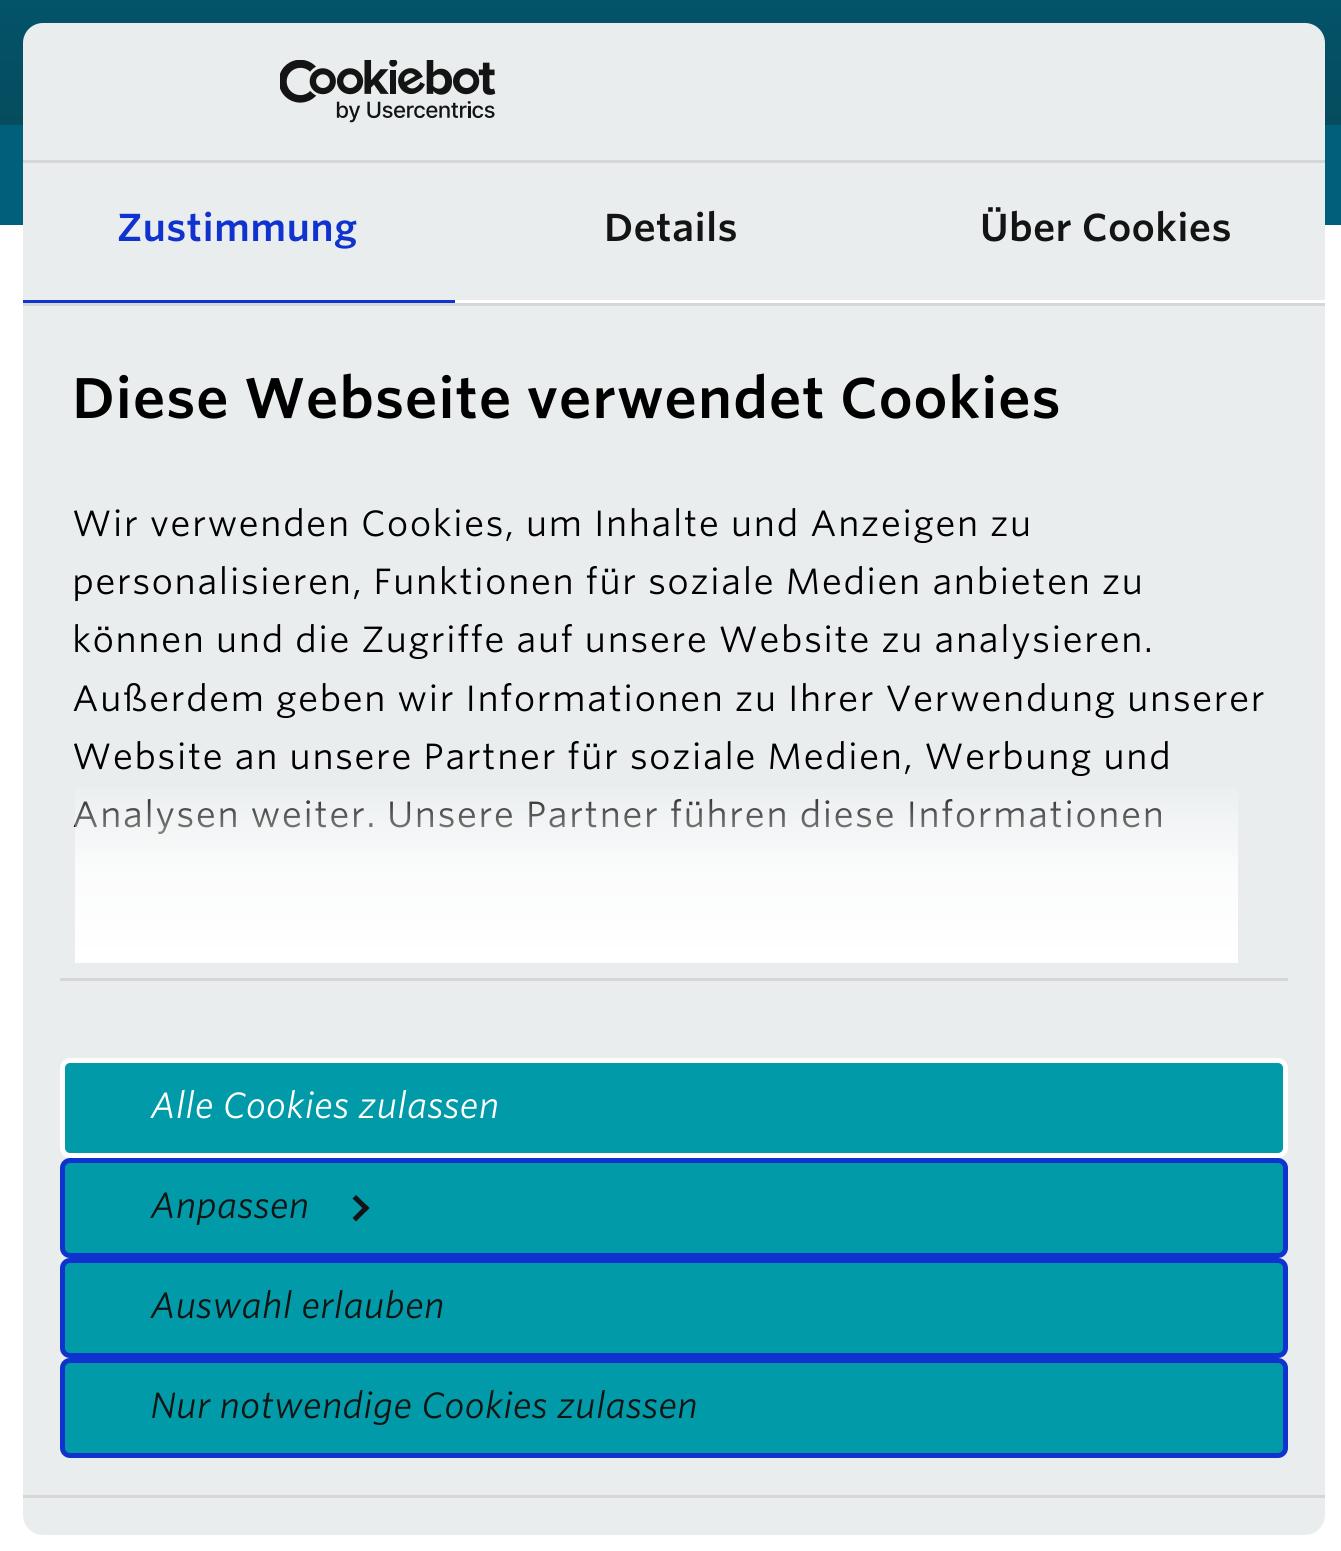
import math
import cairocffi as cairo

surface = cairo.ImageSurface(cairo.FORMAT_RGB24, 1341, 1551)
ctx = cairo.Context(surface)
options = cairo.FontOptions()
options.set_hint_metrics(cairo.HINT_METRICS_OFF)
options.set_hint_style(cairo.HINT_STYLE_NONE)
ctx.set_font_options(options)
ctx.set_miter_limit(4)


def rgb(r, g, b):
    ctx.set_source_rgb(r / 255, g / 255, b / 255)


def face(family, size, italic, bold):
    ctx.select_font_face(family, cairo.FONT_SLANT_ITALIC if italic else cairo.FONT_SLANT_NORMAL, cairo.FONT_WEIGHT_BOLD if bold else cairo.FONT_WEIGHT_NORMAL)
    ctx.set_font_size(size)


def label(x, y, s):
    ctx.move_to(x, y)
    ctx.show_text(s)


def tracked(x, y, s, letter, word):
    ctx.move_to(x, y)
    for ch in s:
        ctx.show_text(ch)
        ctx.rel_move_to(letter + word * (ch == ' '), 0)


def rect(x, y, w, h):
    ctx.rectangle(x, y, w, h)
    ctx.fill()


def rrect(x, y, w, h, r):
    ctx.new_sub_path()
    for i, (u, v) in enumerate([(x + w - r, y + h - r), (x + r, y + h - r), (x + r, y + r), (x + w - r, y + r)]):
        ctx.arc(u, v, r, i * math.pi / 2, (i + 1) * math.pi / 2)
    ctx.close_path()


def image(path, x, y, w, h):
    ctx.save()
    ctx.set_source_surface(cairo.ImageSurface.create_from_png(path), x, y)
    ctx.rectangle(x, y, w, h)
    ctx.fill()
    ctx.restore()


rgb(255, 255, 255)
ctx.paint()
gradient = cairo.LinearGradient(671, 0, 671, 125)
gradient.add_color_stop_rgba(0, 0.012, 0.325, 0.412, 1)
gradient.add_color_stop_rgba(1, 0.02, 0.298, 0.369, 1)
ctx.set_source(gradient)
rect(0, 0, 1341, 125)
rgb(0, 96, 123)
rect(0, 125, 1341, 100)
rgb(233, 237, 238)
rrect(23, 23, 1302, 1512, 20)
ctx.fill()
rgb(214, 214, 214)
rect(23, 160, 1302, 3)
image('image0.png', 280, 60, 216, 63)
rect(23, 303, 1302, 3)
rgb(16, 50, 207)
rect(23, 300, 432, 3)
face('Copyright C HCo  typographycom', 37.5, 0, 0)
tracked(117, 241, 'Zustimmung', 0.25, 0)
rgb(255, 255, 255)
rect(455, 300, 870, 3)
rgb(20, 20, 20)
tracked(604, 241, 'Details', 0.25, 0)
tracked(980, 241, 'Über Cookies', 0.25, 0)
rgb(214, 214, 214)
rect(60, 978, 1228, 3)
face('Copyright C HCo  typographycom', 55, 0, 0)
rgb(0, 0, 0)
tracked(72, 418, 'Diese Webseite verwendet Cookies', 0.6, 0)
face('Copyright C HCo  typographycom Light', 35, 0, 0)
tracked(72, 536, 'Wir verwenden Cookies, um Inhalte und Anzeigen zu', 1.25, 0)
tracked(72, 594, 'personalisieren, Funktionen für soziale Medien anbieten zu', 1.25, 0)
tracked(72, 652, 'können und die Zugriffe auf unsere Website zu analysieren.', 1.25, 0)
tracked(72, 711, 'Außerdem geben wir Informationen zu Ihrer Verwendung unserer', 1.25, 0)
tracked(72, 769, 'Website an unsere Partner für soziale Medien, Werbung und', 1.25, 0)
tracked(72, 827, 'Analysen weiter. Unsere Partner führen diese Informationen', 1.25, 0)
gradient = cairo.LinearGradient(655, 961, 655, 774)
gradient.add_color_stop_rgba(0, 1, 1, 1, 1)
gradient.add_color_stop_rgba(0.5, 1, 1, 1, 0.8)
gradient.add_color_stop_rgba(1, 1, 1, 1, 0)
ctx.set_source(gradient)
rect(75, 788, 1163, 175)
rgb(214, 214, 214)
rect(23, 1495, 1302, 3)
rgb(0, 154, 168)
rrect(62.5, 1060.5, 1223, 95, 7.5)
ctx.fill_preserve()
rgb(255, 255, 255)
ctx.set_line_width(5)
ctx.stroke()
face('Copyright C HCo  typographycom Light', 35, 1, 0)
label(150, 1118, 'Alle Cookies zulassen')
rgb(0, 154, 168)
rrect(62.5, 1160.5, 1223, 95, 7.5)
ctx.fill_preserve()
rgb(16, 50, 207)
ctx.stroke()
rgb(20, 20, 20)
label(150, 1218, 'Anpassen')
ctx.new_path()
ctx.move_to(356, 1195)
ctx.line_to(369.5, 1208)
ctx.line_to(366, 1211.5)
ctx.line_to(352.5, 1198.5)
ctx.close_path()
ctx.fill()
ctx.new_path()
ctx.move_to(366, 1204.5)
ctx.line_to(369.5, 1208)
ctx.line_to(356, 1221.5)
ctx.line_to(352.5, 1218)
ctx.close_path()
ctx.fill()
rgb(0, 154, 168)
rrect(62.5, 1260.5, 1223, 95, 7.5)
ctx.fill_preserve()
rgb(16, 50, 207)
ctx.stroke()
rgb(20, 20, 20)
label(150, 1318, 'Auswahl erlauben')
rgb(0, 154, 168)
rrect(62.5, 1360.5, 1223, 95, 7.5)
ctx.fill_preserve()
rgb(16, 50, 207)
ctx.stroke()
rgb(20, 20, 20)
label(150, 1418, 'Nur notwendige Cookies zulassen')
surface.write_to_png('render.png')
